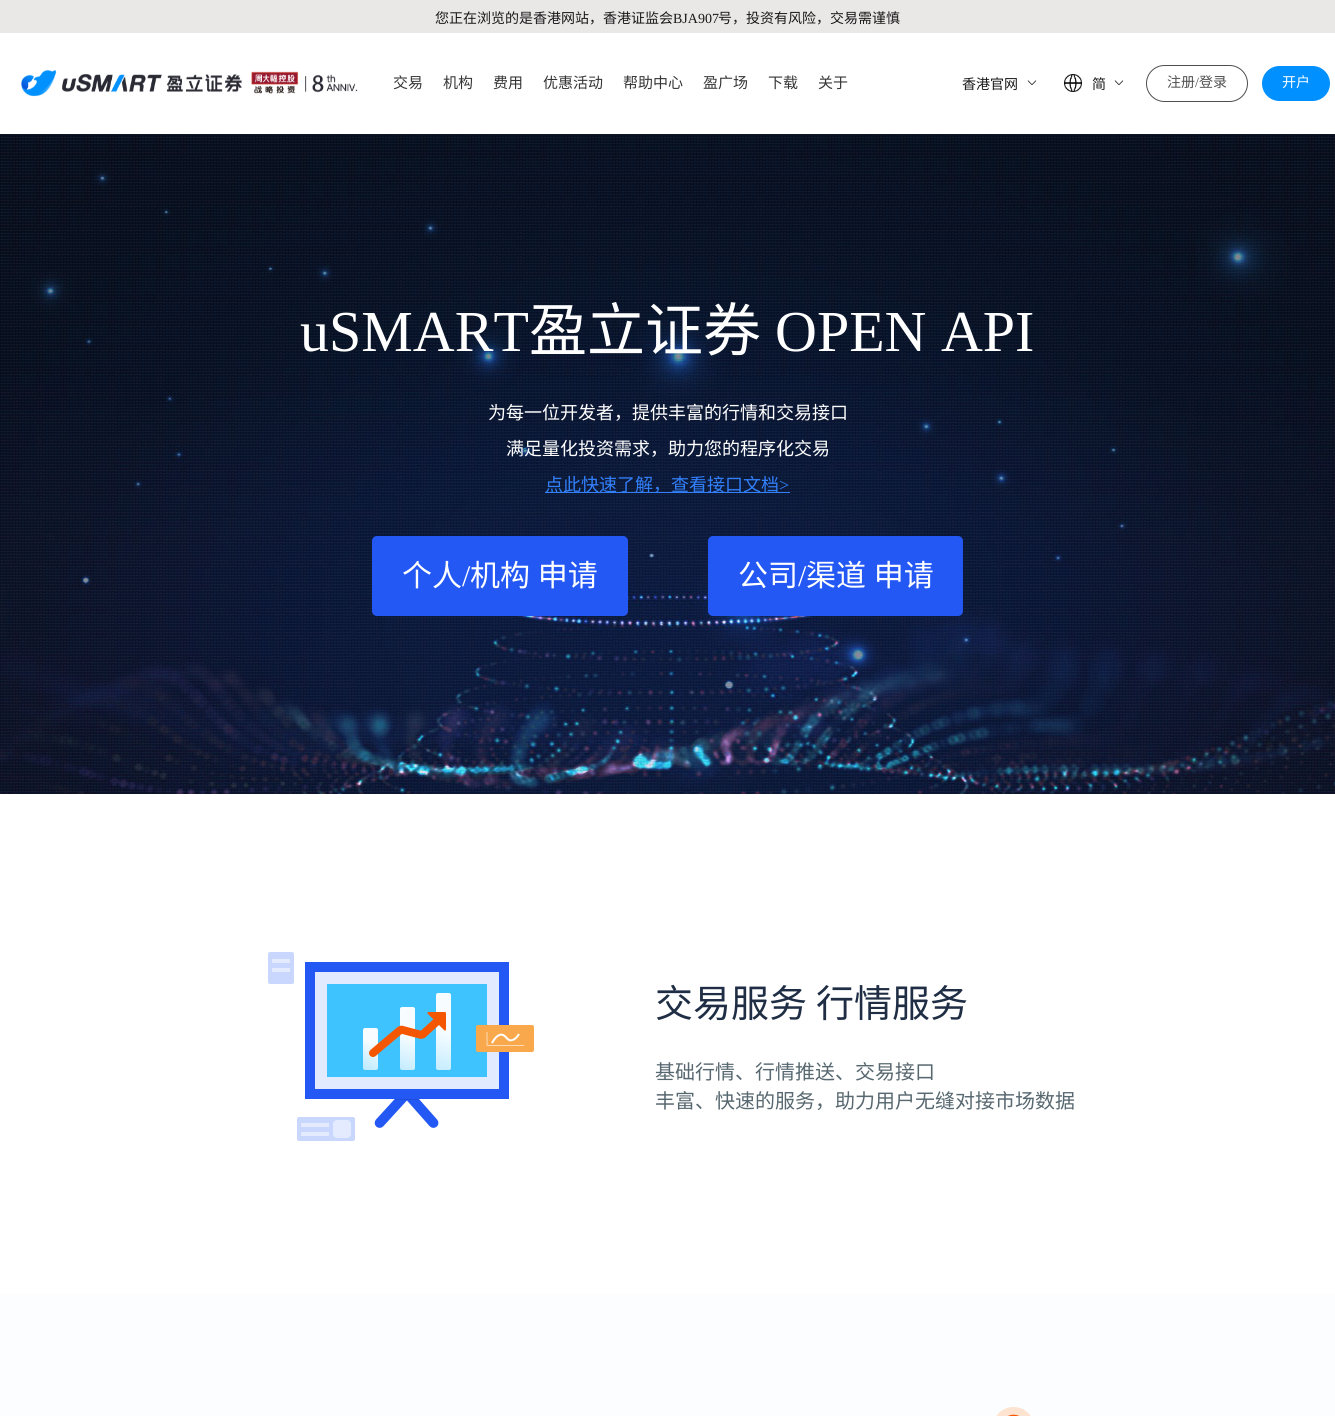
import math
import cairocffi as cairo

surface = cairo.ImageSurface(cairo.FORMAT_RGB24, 1335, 1416)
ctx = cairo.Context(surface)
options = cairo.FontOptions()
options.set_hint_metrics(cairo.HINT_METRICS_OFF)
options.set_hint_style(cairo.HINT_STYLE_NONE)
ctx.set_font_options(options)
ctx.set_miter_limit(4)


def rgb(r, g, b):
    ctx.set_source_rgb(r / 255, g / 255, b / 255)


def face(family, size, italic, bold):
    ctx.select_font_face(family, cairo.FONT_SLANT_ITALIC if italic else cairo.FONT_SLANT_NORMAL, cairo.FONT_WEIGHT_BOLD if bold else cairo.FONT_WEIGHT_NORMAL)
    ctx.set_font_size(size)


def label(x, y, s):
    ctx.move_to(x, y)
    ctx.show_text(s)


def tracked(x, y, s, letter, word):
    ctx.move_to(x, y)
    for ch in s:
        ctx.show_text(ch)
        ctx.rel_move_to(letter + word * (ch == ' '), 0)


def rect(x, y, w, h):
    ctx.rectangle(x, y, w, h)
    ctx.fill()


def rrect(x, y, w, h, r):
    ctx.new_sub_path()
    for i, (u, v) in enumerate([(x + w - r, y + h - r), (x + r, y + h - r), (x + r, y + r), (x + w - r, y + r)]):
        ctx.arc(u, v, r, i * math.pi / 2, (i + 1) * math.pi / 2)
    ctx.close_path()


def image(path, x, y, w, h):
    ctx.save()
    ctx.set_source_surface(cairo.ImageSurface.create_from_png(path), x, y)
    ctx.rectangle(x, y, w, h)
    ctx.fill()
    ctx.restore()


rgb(255, 255, 255)
ctx.paint()
rgb(234, 231, 231)
rect(0, 0, 1335, 33)
face('Noto Sans CJK SC', 14, 0, 0)
rgb(25, 25, 25)
label(435, 23, '您正在浏览的是香港网站，香港证监会')
face('Liberation Serif', 14, 0, 0)
label(673, 23, 'BJA907')
face('Noto Sans CJK SC', 14, 0, 0)
label(718, 23, '号，投资有风险，交易需谨慎')
image('image0.png', 21, 70, 337, 27)
face('Noto Sans CJK SC', 15, 0, 0)
rgb(53, 53, 53)
label(393, 88, '交易')
label(443, 88, '机构')
label(493, 88, '费用')
label(543, 88, '优惠活动')
label(623, 88, '帮助中心')
label(703, 88, '盈广场')
label(768, 88, '下载')
label(818, 88, '关于')
face('Noto Sans CJK SC', 14, 0, 0)
rgb(25, 25, 25)
label(962, 89, '香港官网')
image('image1.png', 1027, 80, 10, 5)
image('image2.png', 1064, 74, 18, 18)
label(1092, 89, '简')
image('image1.png', 1114, 80, 10, 5)
rrect(1146.5, 65.5, 101, 36, 18)
rgb(79, 79, 79)
ctx.set_line_width(1)
ctx.stroke()
label(1167, 87, '注册')
face('Liberation Serif', 14, 0, 0)
label(1195, 87, '/')
face('Noto Sans CJK SC', 14, 0, 0)
label(1199, 87, '登录')
rgb(0, 144, 255)
rrect(1262, 66, 68, 35, 17.5)
ctx.fill()
rgb(255, 255, 255)
label(1282, 87, '开户')
image('image3.png', 0, 134, 1335, 660)
face('Liberation Serif', 58, 0, 0)
label(300, 351, 'uSMART')
face('Noto Sans CJK SC', 58, 0, 0)
label(529, 351, '盈立证券')
face('Liberation Serif', 58, 0, 0)
label(775, 351, 'OPEN API')
face('Noto Sans CJK SC', 18, 0, 0)
label(488, 419, '为每一位开发者，提供丰富的行情和交易接口')
label(506, 455, '满足量化投资需求，助力您的程序化交易')
rgb(50, 128, 252)
rect(545, 492, 245, 1)
label(545, 491, '点此快速了解，查看接口文档')
face('Liberation Serif', 18, 0, 0)
label(779, 491, '>')
rgb(36, 88, 245)
rrect(372, 536, 256, 80, 5)
ctx.fill()
face('Noto Sans CJK SC', 30, 0, 0)
rgb(255, 255, 255)
label(402, 586, '个人')
face('Liberation Serif', 30, 0, 0)
label(462, 586, '/')
face('Noto Sans CJK SC', 30, 0, 0)
tracked(470, 586, '机构 申请', 0, 1)
rgb(36, 88, 245)
rrect(708, 536, 255, 80, 5)
ctx.fill()
rgb(255, 255, 255)
label(738, 586, '公司')
face('Liberation Serif', 30, 0, 0)
label(798, 586, '/')
face('Noto Sans CJK SC', 30, 0, 0)
tracked(806, 586, '渠道 申请', 0, 1)
image('image4.png', 268, 952, 266, 189)
face('Noto Sans CJK SC', 38, 0, 0)
rgb(31, 46, 68)
label(655, 1017, '交易服务')
label(816, 1017, '行情服务')
face('Noto Sans CJK SC', 20, 0, 0)
rgb(88, 104, 112)
label(655, 1079, '基础行情、行情推送、交易接口')
label(655, 1108, '丰富、快速的服务，助力用户无缝对接市场数据')
rgb(251, 253, 255)
rect(0, 1294, 1335, 122)
image('image5.png', 996, 1407, 35, 9)
surface.write_to_png('render.png')
